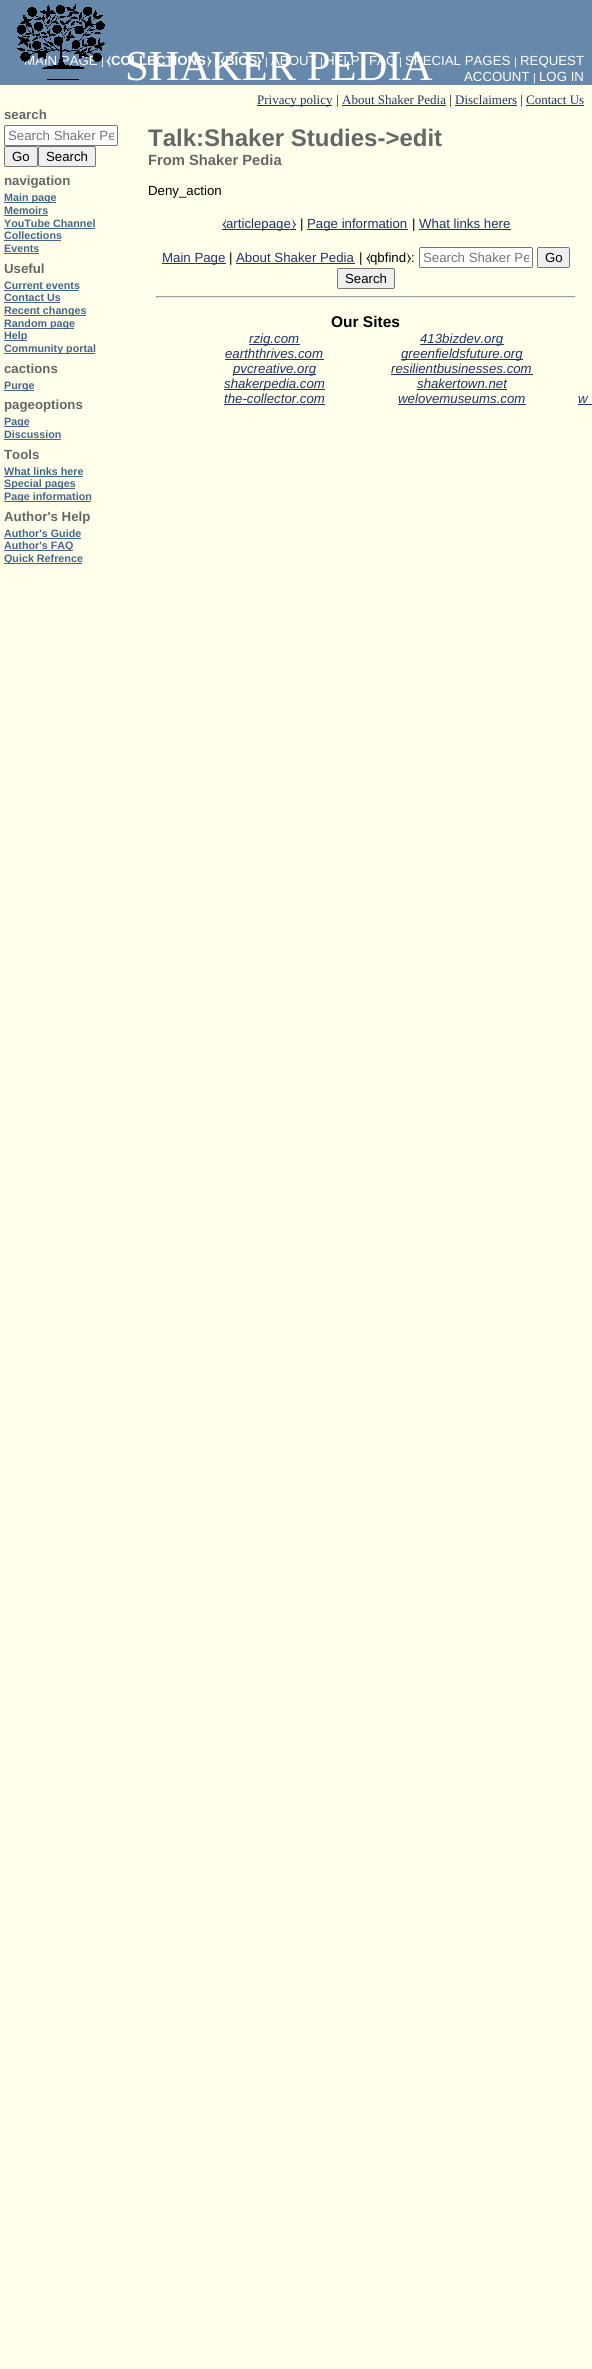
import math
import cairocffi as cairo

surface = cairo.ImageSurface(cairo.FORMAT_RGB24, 592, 2369)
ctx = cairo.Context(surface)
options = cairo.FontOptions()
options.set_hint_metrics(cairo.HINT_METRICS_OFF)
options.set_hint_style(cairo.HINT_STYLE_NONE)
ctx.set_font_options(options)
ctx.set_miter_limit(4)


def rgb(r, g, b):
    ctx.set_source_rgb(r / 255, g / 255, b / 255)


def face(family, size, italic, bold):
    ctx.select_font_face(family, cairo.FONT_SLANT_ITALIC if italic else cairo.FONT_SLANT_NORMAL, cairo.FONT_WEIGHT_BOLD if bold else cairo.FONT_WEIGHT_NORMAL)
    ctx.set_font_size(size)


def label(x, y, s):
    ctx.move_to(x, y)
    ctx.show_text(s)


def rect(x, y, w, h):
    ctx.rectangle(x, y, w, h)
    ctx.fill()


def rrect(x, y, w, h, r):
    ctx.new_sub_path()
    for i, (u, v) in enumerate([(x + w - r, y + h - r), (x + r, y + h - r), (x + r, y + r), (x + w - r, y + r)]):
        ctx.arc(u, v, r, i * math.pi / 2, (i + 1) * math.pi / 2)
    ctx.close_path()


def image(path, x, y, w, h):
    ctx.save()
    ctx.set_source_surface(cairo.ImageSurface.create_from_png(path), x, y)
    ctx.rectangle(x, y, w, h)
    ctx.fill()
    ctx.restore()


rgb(255, 255, 236)
ctx.paint()
rgb(102, 136, 170)
rect(0, 0, 592, 85)
face('Liberation Sans', 13.25, 0, 0)
rgb(255, 255, 255)
label(24, 65, 'MAIN PAGE')
face('Liberation Sans', 10.75, 0, 0)
label(101, 65, '|')
image('image0.png', 17, 4, 88, 76)
face('Liberation Sans', 13.25, 0, 1)
label(111, 65, 'COLLECTIONS')
face('FreeSerif', 13.25, 0, 1)
label(207, 65, '⧽')
face('Liberation Sans', 10.75, 0, 0)
label(214, 65, '|')
face('FreeSerif', 13.25, 0, 1)
label(220, 65, '⧼')
face('Liberation Sans', 13.25, 0, 1)
label(225, 65, 'BIOS')
face('FreeSerif', 13.25, 0, 1)
label(257, 65, '⧽')
face('Liberation Sans', 10.75, 0, 0)
label(265, 65, '|')
face('Liberation Sans', 13.25, 0, 0)
label(271, 65, 'ABOUT')
face('Liberation Sans', 10.75, 0, 0)
label(320, 65, '|')
face('Liberation Sans', 13.25, 0, 0)
label(325, 65, 'HELP')
face('Liberation Sans', 10.75, 0, 0)
label(363, 65, '|')
face('Liberation Sans', 13.25, 0, 0)
label(369, 65, 'FAQ')
face('Liberation Sans', 10.75, 0, 0)
label(399, 65, '|')
face('Liberation Sans', 13.25, 0, 0)
label(405, 65, 'SPECIAL PAGES')
face('Liberation Serif', 42.75, 0, 0)
label(125, 80, 'SHAKER PEDIA')
rgb(34, 51, 102)
rect(257, 105, 75, 1)
face('Liberation Serif', 13, 0, 0)
label(257, 104, 'Privacy policy')
rgb(0, 0, 0)
label(336, 104, '|')
rgb(34, 51, 102)
label(342, 104, 'About Shaker Pedia')
rect(342, 105, 104, 1)
rgb(0, 0, 0)
label(449, 104, '|')
rgb(34, 51, 102)
label(455, 104, 'Disclaimers')
rect(455, 105, 62, 1)
rgb(0, 0, 0)
label(520, 104, '|')
rgb(34, 51, 102)
label(526, 104, 'Contact Us')
rect(526, 105, 58, 1)
face('Liberation Sans', 24, 0, 1)
rgb(102, 102, 102)
label(148, 146, 'Talk:Shaker Studies->edit')
face('Liberation Sans', 14.75, 0, 1)
label(148, 165, 'From Shaker Pedia')
face('Liberation Sans', 13.25, 0, 0)
rgb(0, 0, 0)
label(148, 195, 'Deny_action')
rgb(34, 51, 102)
rect(222, 229, 74, 1)
face('FreeSerif', 13.25, 0, 0)
label(222, 228, '⧼')
face('Liberation Sans', 13.25, 0, 0)
label(226, 228, 'articlepage')
face('FreeSerif', 13.25, 0, 0)
label(292, 228, '⧽')
face('Liberation Sans', 13.25, 0, 0)
rgb(0, 0, 0)
label(300, 228, '|')
rgb(34, 51, 102)
rect(307, 229, 101, 1)
label(307, 228, 'Page information')
rgb(0, 0, 0)
label(412, 228, '|')
rgb(34, 51, 102)
label(419, 228, 'What links here')
rect(419, 229, 92, 1)
rect(162, 263, 64, 1)
label(162, 262, 'Main Page')
rgb(0, 0, 0)
label(229, 262, '|')
rgb(34, 51, 102)
label(236, 262, 'About Shaker Pedia')
rect(236, 263, 119, 1)
face('FreeSerif', 13.25, 0, 0)
rgb(0, 0, 0)
label(366, 262, '⧼')
face('Liberation Sans', 13.25, 0, 0)
label(370, 262, 'qbfind')
face('FreeSerif', 13.25, 0, 0)
label(407, 262, '⧽')
face('Liberation Sans', 13.25, 0, 0)
label(411, 262, ':')
rgb(255, 255, 255)
rrect(419.5, 247.5, 113, 20, 1.5)
ctx.fill_preserve()
rgb(118, 118, 118)
ctx.set_line_width(1)
ctx.stroke()
ctx.save()
ctx.rectangle(423, 250, 106, 15)
ctx.clip()
rgb(117, 117, 117)
label(423, 262, 'Search Shaker Pe')
ctx.restore()
rgb(239, 239, 239)
rrect(537.5, 247.5, 32, 20, 1.5)
ctx.fill_preserve()
rgb(118, 118, 118)
ctx.stroke()
rgb(0, 0, 0)
label(545, 262, 'Go')
rgb(239, 239, 239)
rrect(337.5, 268.5, 57, 20, 1.5)
ctx.fill_preserve()
rgb(118, 118, 118)
ctx.stroke()
rgb(0, 0, 0)
label(345, 283, 'Search')
label(359, 262, '|')
rgb(159, 159, 159)
rect(156, 296, 420, 1)
rgb(238, 238, 238)
rect(575, 296, 1, 2)
rect(156, 297, 420, 1)
rgb(159, 159, 159)
rect(156, 296, 1, 2)
face('Liberation Sans', 15.5, 0, 1)
rgb(0, 0, 0)
label(331, 327, 'Our Sites')
rgb(34, 51, 102)
rect(249, 344, 51, 1)
face('Liberation Sans', 13.25, 1, 0)
label(249, 343, 'rzig.com')
rect(420, 344, 84, 1)
label(420, 343, '413bizdev.org')
label(225, 358, 'earththrives.com')
rect(225, 359, 99, 1)
rect(401, 359, 122, 1)
label(401, 358, 'greenfieldsfuture.org')
rect(233, 374, 83, 1)
label(233, 373, 'pvcreative.org')
label(391, 373, 'resilientbusinesses.com')
rect(391, 374, 142, 1)
rect(224, 389, 101, 1)
label(224, 388, 'shakerpedia.com')
label(417, 388, 'shakertown.net')
rect(417, 389, 90, 1)
label(224, 403, 'the-collector.com')
rect(224, 404, 101, 1)
label(398, 403, 'welovemuseums.com')
rect(398, 404, 128, 1)
label(578, 403, 'w')
rect(578, 404, 14, 1)
face('FreeSerif', 13.25, 0, 1)
rgb(255, 255, 255)
label(106, 65, '⧼')
face('Liberation Sans', 10.75, 0, 0)
label(514, 65, '|')
face('Liberation Sans', 13.25, 0, 0)
label(520, 65, 'REQUEST')
label(464, 81, 'ACCOUNT')
face('Liberation Sans', 10.75, 0, 0)
label(533, 81, '|')
face('Liberation Sans', 13.25, 0, 0)
label(539, 81, 'LOG IN')
face('Liberation Sans', 13.25, 0, 1)
rgb(102, 102, 102)
label(4, 119, 'search')
rgb(255, 255, 255)
rrect(4.5, 125.5, 113, 20, 1.5)
ctx.fill_preserve()
rgb(118, 118, 118)
ctx.stroke()
ctx.save()
ctx.rectangle(8, 128, 106, 15)
ctx.clip()
face('Liberation Sans', 13.25, 0, 0)
rgb(117, 117, 117)
label(8, 140, 'Search Shaker Pe')
ctx.restore()
rgb(239, 239, 239)
rrect(4.5, 146.5, 33, 20, 1.5)
ctx.fill_preserve()
rgb(118, 118, 118)
ctx.stroke()
face('Liberation Sans', 13.25, 0, 0)
rgb(0, 0, 0)
label(12, 161, 'Go')
rgb(239, 239, 239)
rrect(38.5, 146.5, 57, 20, 1.5)
ctx.fill_preserve()
rgb(118, 118, 118)
ctx.stroke()
rgb(0, 0, 0)
label(46, 161, 'Search')
face('Liberation Sans', 13.25, 0, 1)
rgb(102, 102, 102)
label(4, 185, 'navigation')
rgb(68, 102, 136)
rect(4, 202, 52, 1)
face('Liberation Sans', 10.75, 0, 1)
label(4, 201, 'Main page')
label(4, 214, 'Memoirs')
rect(4, 215, 44, 1)
label(4, 227, 'YouTube Channel')
rect(4, 228, 91, 1)
label(4, 239, 'Collections')
rect(4, 240, 57, 1)
label(4, 252, 'Events')
rect(4, 253, 35, 1)
face('Liberation Sans', 13.25, 0, 1)
rgb(102, 102, 102)
label(4, 273, 'Useful')
face('Liberation Sans', 10.75, 0, 1)
rgb(68, 102, 136)
label(4, 289, 'Current events')
rect(4, 290, 75, 1)
label(4, 301, 'Contact Us')
rect(4, 302, 56, 1)
rect(4, 315, 82, 1)
label(4, 314, 'Recent changes')
rect(4, 328, 70, 1)
label(4, 327, 'Random page')
rect(4, 340, 23, 1)
label(4, 339, 'Help')
rect(4, 353, 91, 1)
label(4, 352, 'Community portal')
face('Liberation Sans', 13.25, 0, 1)
rgb(102, 102, 102)
label(4, 373, 'cactions')
rgb(68, 102, 136)
rect(4, 390, 30, 1)
face('Liberation Sans', 10.75, 0, 1)
label(4, 389, 'Purge')
face('Liberation Sans', 13.25, 0, 1)
rgb(102, 102, 102)
label(4, 409, 'pageoptions')
rgb(68, 102, 136)
rect(4, 426, 25, 1)
face('Liberation Sans', 10.75, 0, 1)
label(4, 425, 'Page')
label(4, 438, 'Discussion')
rect(4, 439, 57, 1)
face('Liberation Sans', 13.25, 0, 1)
rgb(102, 102, 102)
label(4, 459, 'Tools')
face('Liberation Sans', 10.75, 0, 1)
rgb(68, 102, 136)
label(4, 475, 'What links here')
rect(4, 476, 79, 1)
rect(4, 488, 71, 1)
label(4, 487, 'Special pages')
rect(4, 501, 87, 1)
label(4, 500, 'Page information')
face('Liberation Sans', 13.25, 0, 1)
rgb(102, 102, 102)
label(4, 521, 'Author\'s Help')
face('Liberation Sans', 10.75, 0, 1)
rgb(68, 102, 136)
label(4, 537, 'Author\'s Guide')
rect(4, 538, 77, 1)
rect(4, 550, 69, 1)
label(4, 549, 'Author\'s FAQ')
rect(4, 563, 78, 1)
label(4, 562, 'Quick Refrence')
surface.write_to_png('render.png')
